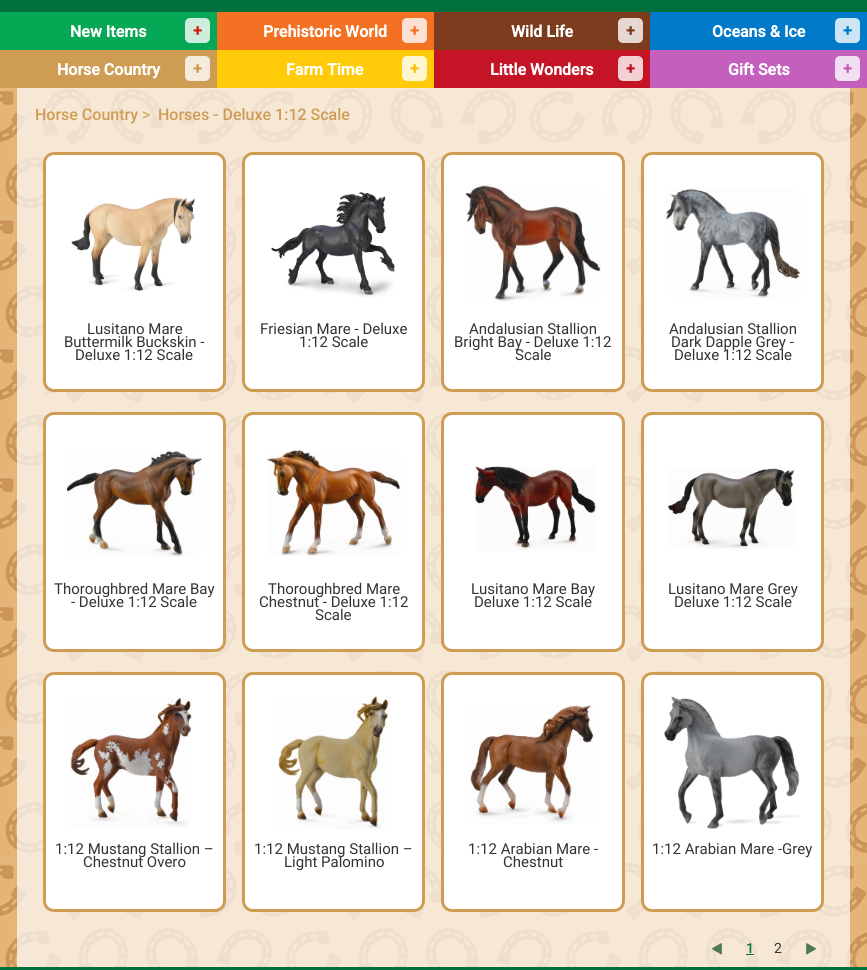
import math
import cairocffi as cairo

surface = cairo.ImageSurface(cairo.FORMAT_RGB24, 867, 970)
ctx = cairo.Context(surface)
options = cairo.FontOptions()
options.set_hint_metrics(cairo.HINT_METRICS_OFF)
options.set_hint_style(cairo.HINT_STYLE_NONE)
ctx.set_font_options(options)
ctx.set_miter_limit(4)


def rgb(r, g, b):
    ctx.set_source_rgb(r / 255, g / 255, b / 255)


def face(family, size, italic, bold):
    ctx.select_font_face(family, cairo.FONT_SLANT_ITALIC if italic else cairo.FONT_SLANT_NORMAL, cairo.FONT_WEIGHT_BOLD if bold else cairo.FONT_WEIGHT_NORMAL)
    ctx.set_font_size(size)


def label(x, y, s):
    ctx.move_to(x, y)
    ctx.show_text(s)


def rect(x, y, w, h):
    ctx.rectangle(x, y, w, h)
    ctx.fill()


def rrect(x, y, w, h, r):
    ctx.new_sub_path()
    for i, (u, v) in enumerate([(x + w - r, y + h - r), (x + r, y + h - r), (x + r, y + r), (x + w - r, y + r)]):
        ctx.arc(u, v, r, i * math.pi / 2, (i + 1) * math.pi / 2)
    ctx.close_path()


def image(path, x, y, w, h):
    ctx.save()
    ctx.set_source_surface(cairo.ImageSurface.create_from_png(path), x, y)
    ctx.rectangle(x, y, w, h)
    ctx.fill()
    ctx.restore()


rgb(0, 112, 60)
ctx.paint()
rgb(6, 167, 85)
rect(0, 12, 217, 38)
face('Roboto', 16, 0, 1)
rgb(255, 255, 255)
label(70, 37, 'New Items')
rgb(205, 237, 221)
rrect(185, 18, 25, 25, 5)
ctx.fill()
rgb(205, 33, 17)
label(193, 36, '+')
rgb(244, 112, 34)
rect(217, 12, 217, 38)
rgb(255, 255, 255)
label(263, 37, 'Prehistoric World')
rgb(253, 226, 211)
rrect(402, 18, 25, 25, 5)
ctx.fill()
rgb(244, 112, 34)
label(410, 36, '+')
rgb(124, 59, 28)
rect(434, 12, 216, 38)
rgb(255, 255, 255)
label(511, 37, 'Wild Life')
rgb(229, 216, 210)
rrect(618, 18, 25, 25, 5)
ctx.fill()
rgb(124, 59, 28)
label(626, 36, '+')
rgb(0, 122, 201)
rect(650, 12, 217, 38)
rgb(255, 255, 255)
label(712, 37, 'Oceans & Ice')
rgb(204, 228, 244)
rrect(835, 18, 25, 25, 5)
ctx.fill()
rgb(0, 122, 201)
label(843, 36, '+')
rgb(206, 157, 83)
rect(0, 50, 217, 38)
rgb(255, 255, 255)
label(57, 75, 'Horse Country')
rgb(245, 235, 221)
rrect(185, 56, 25, 25, 5)
ctx.fill()
rgb(206, 157, 83)
label(193, 74, '+')
rgb(255, 203, 8)
rect(217, 50, 217, 38)
rgb(255, 255, 255)
label(286, 75, 'Farm Time')
rgb(255, 245, 206)
rrect(402, 56, 25, 25, 5)
ctx.fill()
rgb(253, 189, 17)
label(410, 74, '+')
rgb(196, 20, 38)
rect(434, 50, 216, 38)
rgb(255, 255, 255)
label(490, 75, 'Little Wonders')
rgb(243, 208, 212)
rrect(618, 56, 25, 25, 5)
ctx.fill()
rgb(196, 20, 38)
label(626, 74, '+')
rgb(197, 95, 189)
rect(650, 50, 217, 38)
rgb(255, 255, 255)
label(728, 75, 'Gift Sets')
rgb(243, 223, 242)
rrect(835, 56, 25, 25, 5)
ctx.fill()
rgb(197, 95, 189)
label(843, 74, '+')
image('image0.png', 0, 88, 867, 879)
face('Roboto Medium', 16, 0, 0)
rgb(206, 157, 83)
label(35, 120, 'Horse Country')
face('Roboto', 16, 0, 0)
label(142, 120, '>')
face('Roboto Medium', 16, 0, 0)
label(158, 120, 'Horses - Deluxe 1:12 Scale')
rgb(255, 255, 255)
rrect(44.5, 153.5, 180, 237, 9.5)
ctx.fill_preserve()
rgb(206, 157, 83)
ctx.set_line_width(3)
ctx.stroke()
image('image1.png', 71, 197, 125, 95)
face('Roboto', 15, 0, 0)
rgb(51, 51, 51)
label(87, 334, 'Lusitano Mare')
label(64, 347, 'Buttermilk Buckskin -')
label(75, 360, 'Deluxe 1:12 Scale')
rgb(255, 255, 255)
rrect(243.5, 153.5, 180, 237, 9.5)
ctx.fill_preserve()
rgb(206, 157, 83)
ctx.stroke()
image('image2.png', 271, 192, 124, 105)
rgb(51, 51, 51)
label(260, 334, 'Friesian Mare - Deluxe')
label(299, 347, '1:12 Scale')
rgb(255, 255, 255)
rrect(442.5, 153.5, 181, 237, 9.5)
ctx.fill_preserve()
rgb(206, 157, 83)
ctx.stroke()
image('image3.png', 465, 184, 136, 118)
rgb(51, 51, 51)
label(469, 334, 'Andalusian Stallion')
label(454, 347, 'Bright Bay - Deluxe 1:12')
label(515, 360, 'Scale')
rgb(255, 255, 255)
rrect(642.5, 153.5, 180, 237, 9.5)
ctx.fill_preserve()
rgb(206, 157, 83)
ctx.stroke()
image('image4.png', 666, 188, 135, 110)
rgb(51, 51, 51)
label(669, 334, 'Andalusian Stallion')
label(671, 347, 'Dark Dapple Grey -')
label(674, 360, 'Deluxe 1:12 Scale')
rgb(255, 255, 255)
rrect(44.5, 413.5, 180, 237, 9.5)
ctx.fill_preserve()
rgb(206, 157, 83)
ctx.stroke()
image('image5.png', 66, 451, 136, 106)
rgb(51, 51, 51)
label(54, 594, 'Thoroughbred Mare Bay')
label(71, 607, '- Deluxe 1:12 Scale')
rgb(255, 255, 255)
rrect(243.5, 413.5, 180, 237, 9.5)
ctx.fill_preserve()
rgb(206, 157, 83)
ctx.stroke()
image('image6.png', 267, 450, 134, 106)
rgb(51, 51, 51)
label(268, 594, 'Thoroughbred Mare')
label(259, 607, 'Chestnut - Deluxe 1:12')
label(315, 620, 'Scale')
rgb(255, 255, 255)
rrect(442.5, 413.5, 181, 237, 9.5)
ctx.fill_preserve()
rgb(206, 157, 83)
ctx.stroke()
image('image7.png', 474, 466, 122, 85)
rgb(51, 51, 51)
label(471, 594, 'Lusitano Mare Bay')
label(474, 607, 'Deluxe 1:12 Scale')
rgb(255, 255, 255)
rrect(642.5, 413.5, 180, 237, 9.5)
ctx.fill_preserve()
rgb(206, 157, 83)
ctx.stroke()
image('image8.png', 668, 468, 127, 81)
rgb(51, 51, 51)
label(668, 594, 'Lusitano Mare Grey')
label(674, 607, 'Deluxe 1:12 Scale')
rgb(255, 255, 255)
rrect(44.5, 673.5, 180, 237, 9.5)
ctx.fill_preserve()
rgb(206, 157, 83)
ctx.stroke()
image('image9.png', 70, 697, 122, 131)
rgb(51, 51, 51)
label(55, 854, '1:12 Mustang Stallion –')
label(83, 867, 'Chestnut Overo')
rgb(255, 255, 255)
rrect(243.5, 673.5, 180, 237, 9.5)
ctx.fill_preserve()
rgb(206, 157, 83)
ctx.stroke()
image('image10.png', 278, 696, 113, 134)
rgb(51, 51, 51)
label(254, 854, '1:12 Mustang Stallion –')
label(284, 867, 'Light Palomino')
rgb(255, 255, 255)
rrect(442.5, 673.5, 181, 237, 9.5)
ctx.fill_preserve()
rgb(206, 157, 83)
ctx.stroke()
image('image11.png', 470, 705, 124, 119)
rgb(51, 51, 51)
label(468, 854, '1:12 Arabian Mare -')
label(503, 867, 'Chestnut')
rgb(255, 255, 255)
rrect(642.5, 673.5, 180, 237, 9.5)
ctx.fill_preserve()
rgb(206, 157, 83)
ctx.stroke()
image('image12.png', 664, 696, 137, 133)
rgb(51, 51, 51)
label(652, 854, '1:12 Arabian Mare -Grey')
image('image13.png', 712, 943, 10, 12)
face('Roboto Medium', 14, 0, 0)
rgb(1, 112, 61)
label(746, 953, '1')
rect(746, 954, 8, 1)
face('Roboto', 14, 0, 0)
rgb(51, 51, 51)
label(774, 953, '2')
image('image14.png', 806, 943, 10, 12)
surface.write_to_png('render.png')
